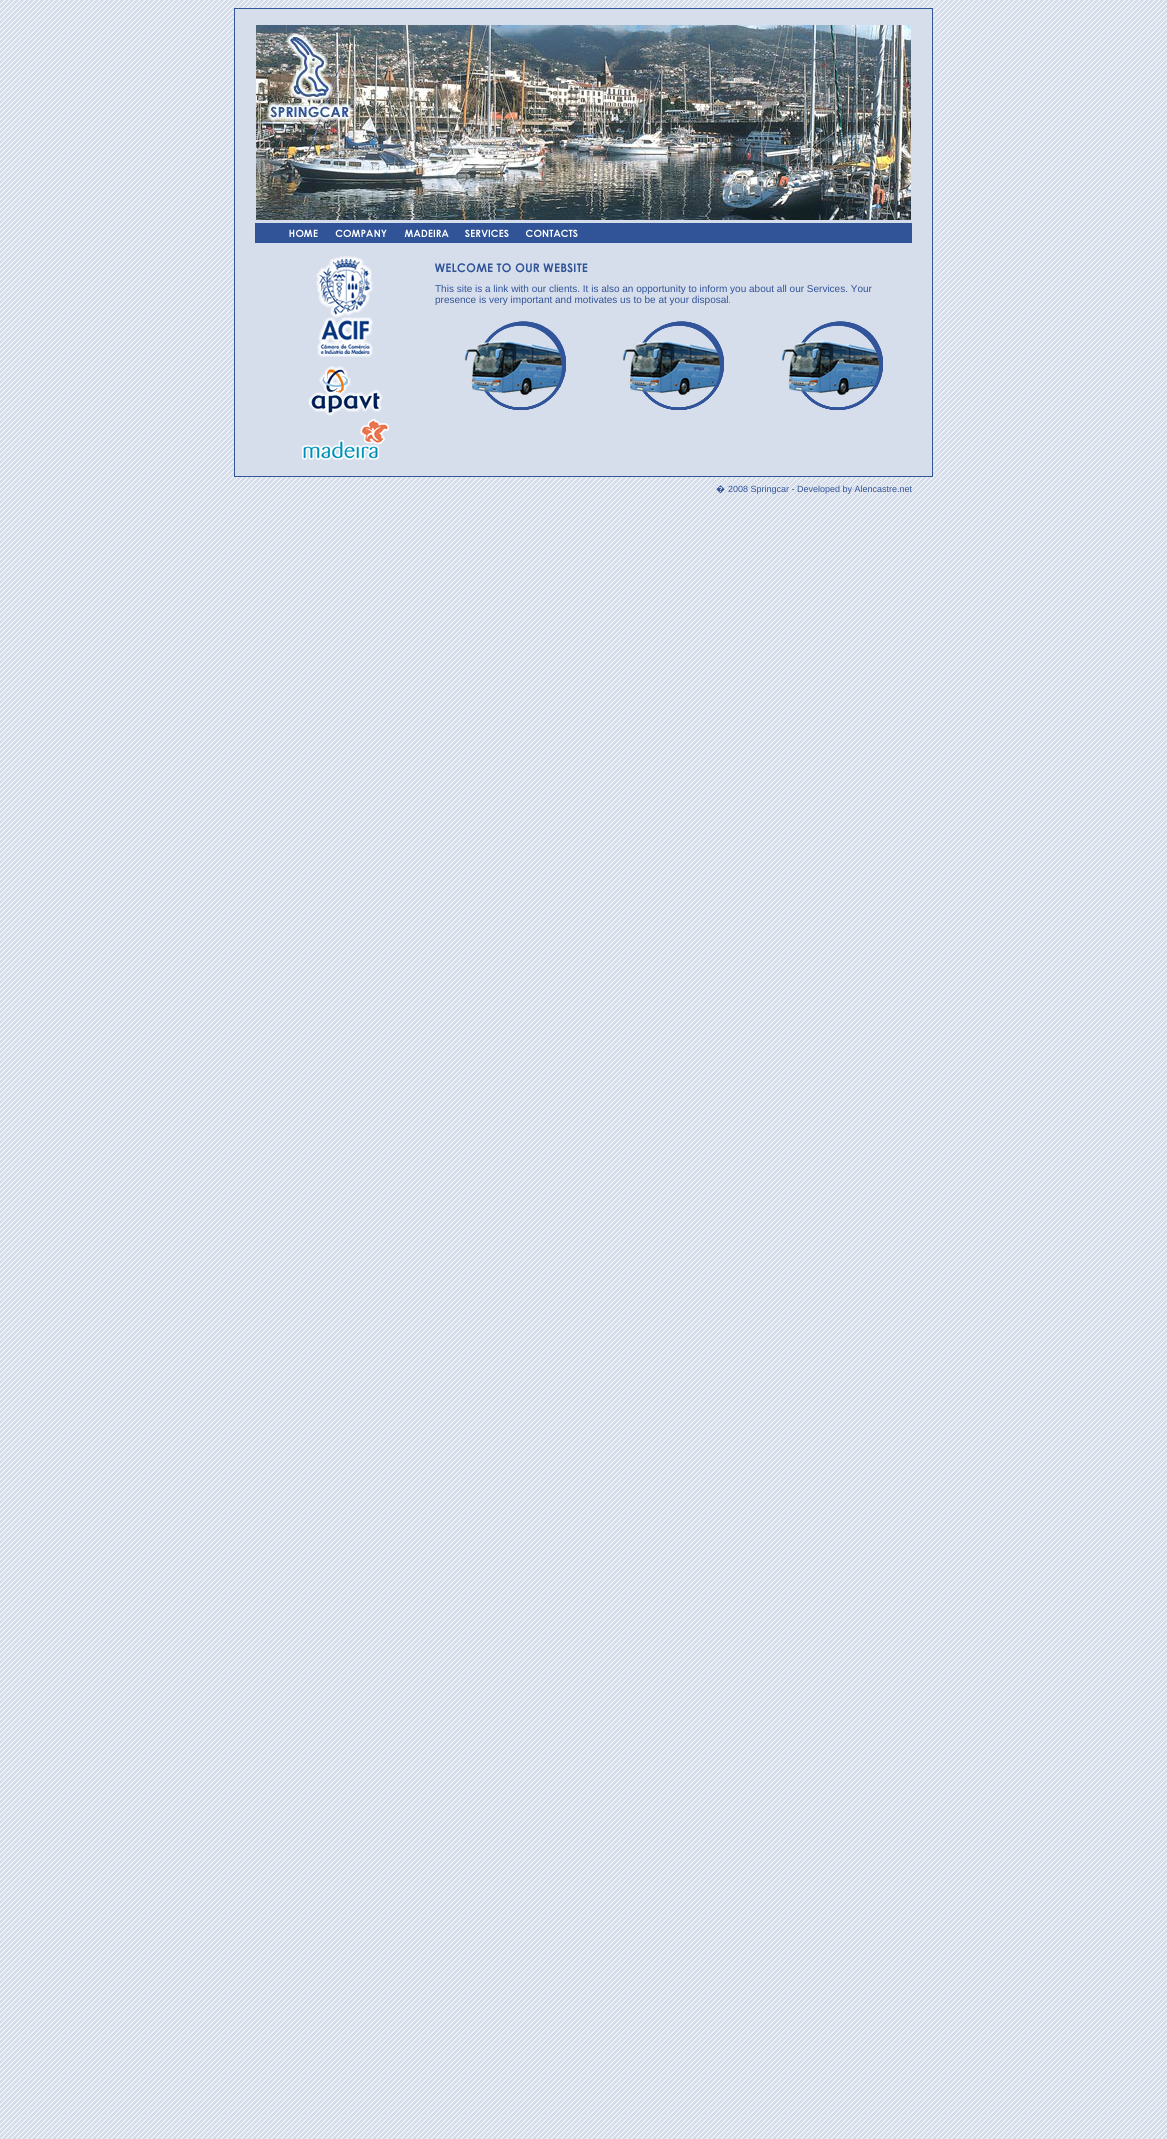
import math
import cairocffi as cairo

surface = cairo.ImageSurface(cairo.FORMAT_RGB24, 1167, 2139)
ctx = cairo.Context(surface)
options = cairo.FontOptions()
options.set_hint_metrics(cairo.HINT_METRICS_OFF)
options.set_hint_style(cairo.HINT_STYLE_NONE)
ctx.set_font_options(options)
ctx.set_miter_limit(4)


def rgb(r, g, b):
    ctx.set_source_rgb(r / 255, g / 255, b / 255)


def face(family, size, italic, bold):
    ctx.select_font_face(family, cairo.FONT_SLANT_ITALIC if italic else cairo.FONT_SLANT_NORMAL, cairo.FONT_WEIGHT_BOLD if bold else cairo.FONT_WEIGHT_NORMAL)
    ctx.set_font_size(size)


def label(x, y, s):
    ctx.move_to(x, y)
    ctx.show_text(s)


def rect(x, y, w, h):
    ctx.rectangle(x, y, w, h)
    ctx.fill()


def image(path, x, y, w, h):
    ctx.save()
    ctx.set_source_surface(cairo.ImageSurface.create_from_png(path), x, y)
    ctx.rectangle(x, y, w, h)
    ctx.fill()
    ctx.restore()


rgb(214, 221, 235)
ctx.paint()
image('image0.png', 0, 0, 1167, 2139)
rgb(214, 221, 235)
ctx.rectangle(234.5, 8.5, 698, 468)
ctx.fill_preserve()
rgb(50, 85, 152)
ctx.set_line_width(1)
ctx.stroke()
image('image1.png', 256, 25, 655, 195)
rgb(49, 84, 152)
rect(255, 223, 657, 20)
image('image2.png', 289, 229, 29, 8)
image('image3.png', 335, 229, 52, 8)
image('image4.png', 404, 229, 45, 8)
image('image5.png', 465, 229, 44, 8)
image('image6.png', 526, 229, 52, 8)
image('image7.png', 316, 256, 57, 101)
image('image8.png', 308, 366, 75, 50)
image('image9.png', 302, 418, 87, 42)
image('image10.png', 435, 263, 153, 10)
face('Liberation Sans', 10, 0, 0)
label(435, 292, 'This site is a link with our clients. It is also an opportunity to inform you about all our Services. Your')
label(435, 303, 'presence is very important and motivates us to be at your disposal.')
image('image11.png', 464, 321, 102, 89)
image('image11.png', 622, 321, 102, 89)
image('image11.png', 781, 321, 102, 89)
face('Noto Sans', 9, 0, 0)
label(716, 492, '�')
face('Liberation Sans', 9, 0, 0)
label(728, 492, '2008 Springcar - Developed by Alencastre.net')
surface.write_to_png('render.png')
